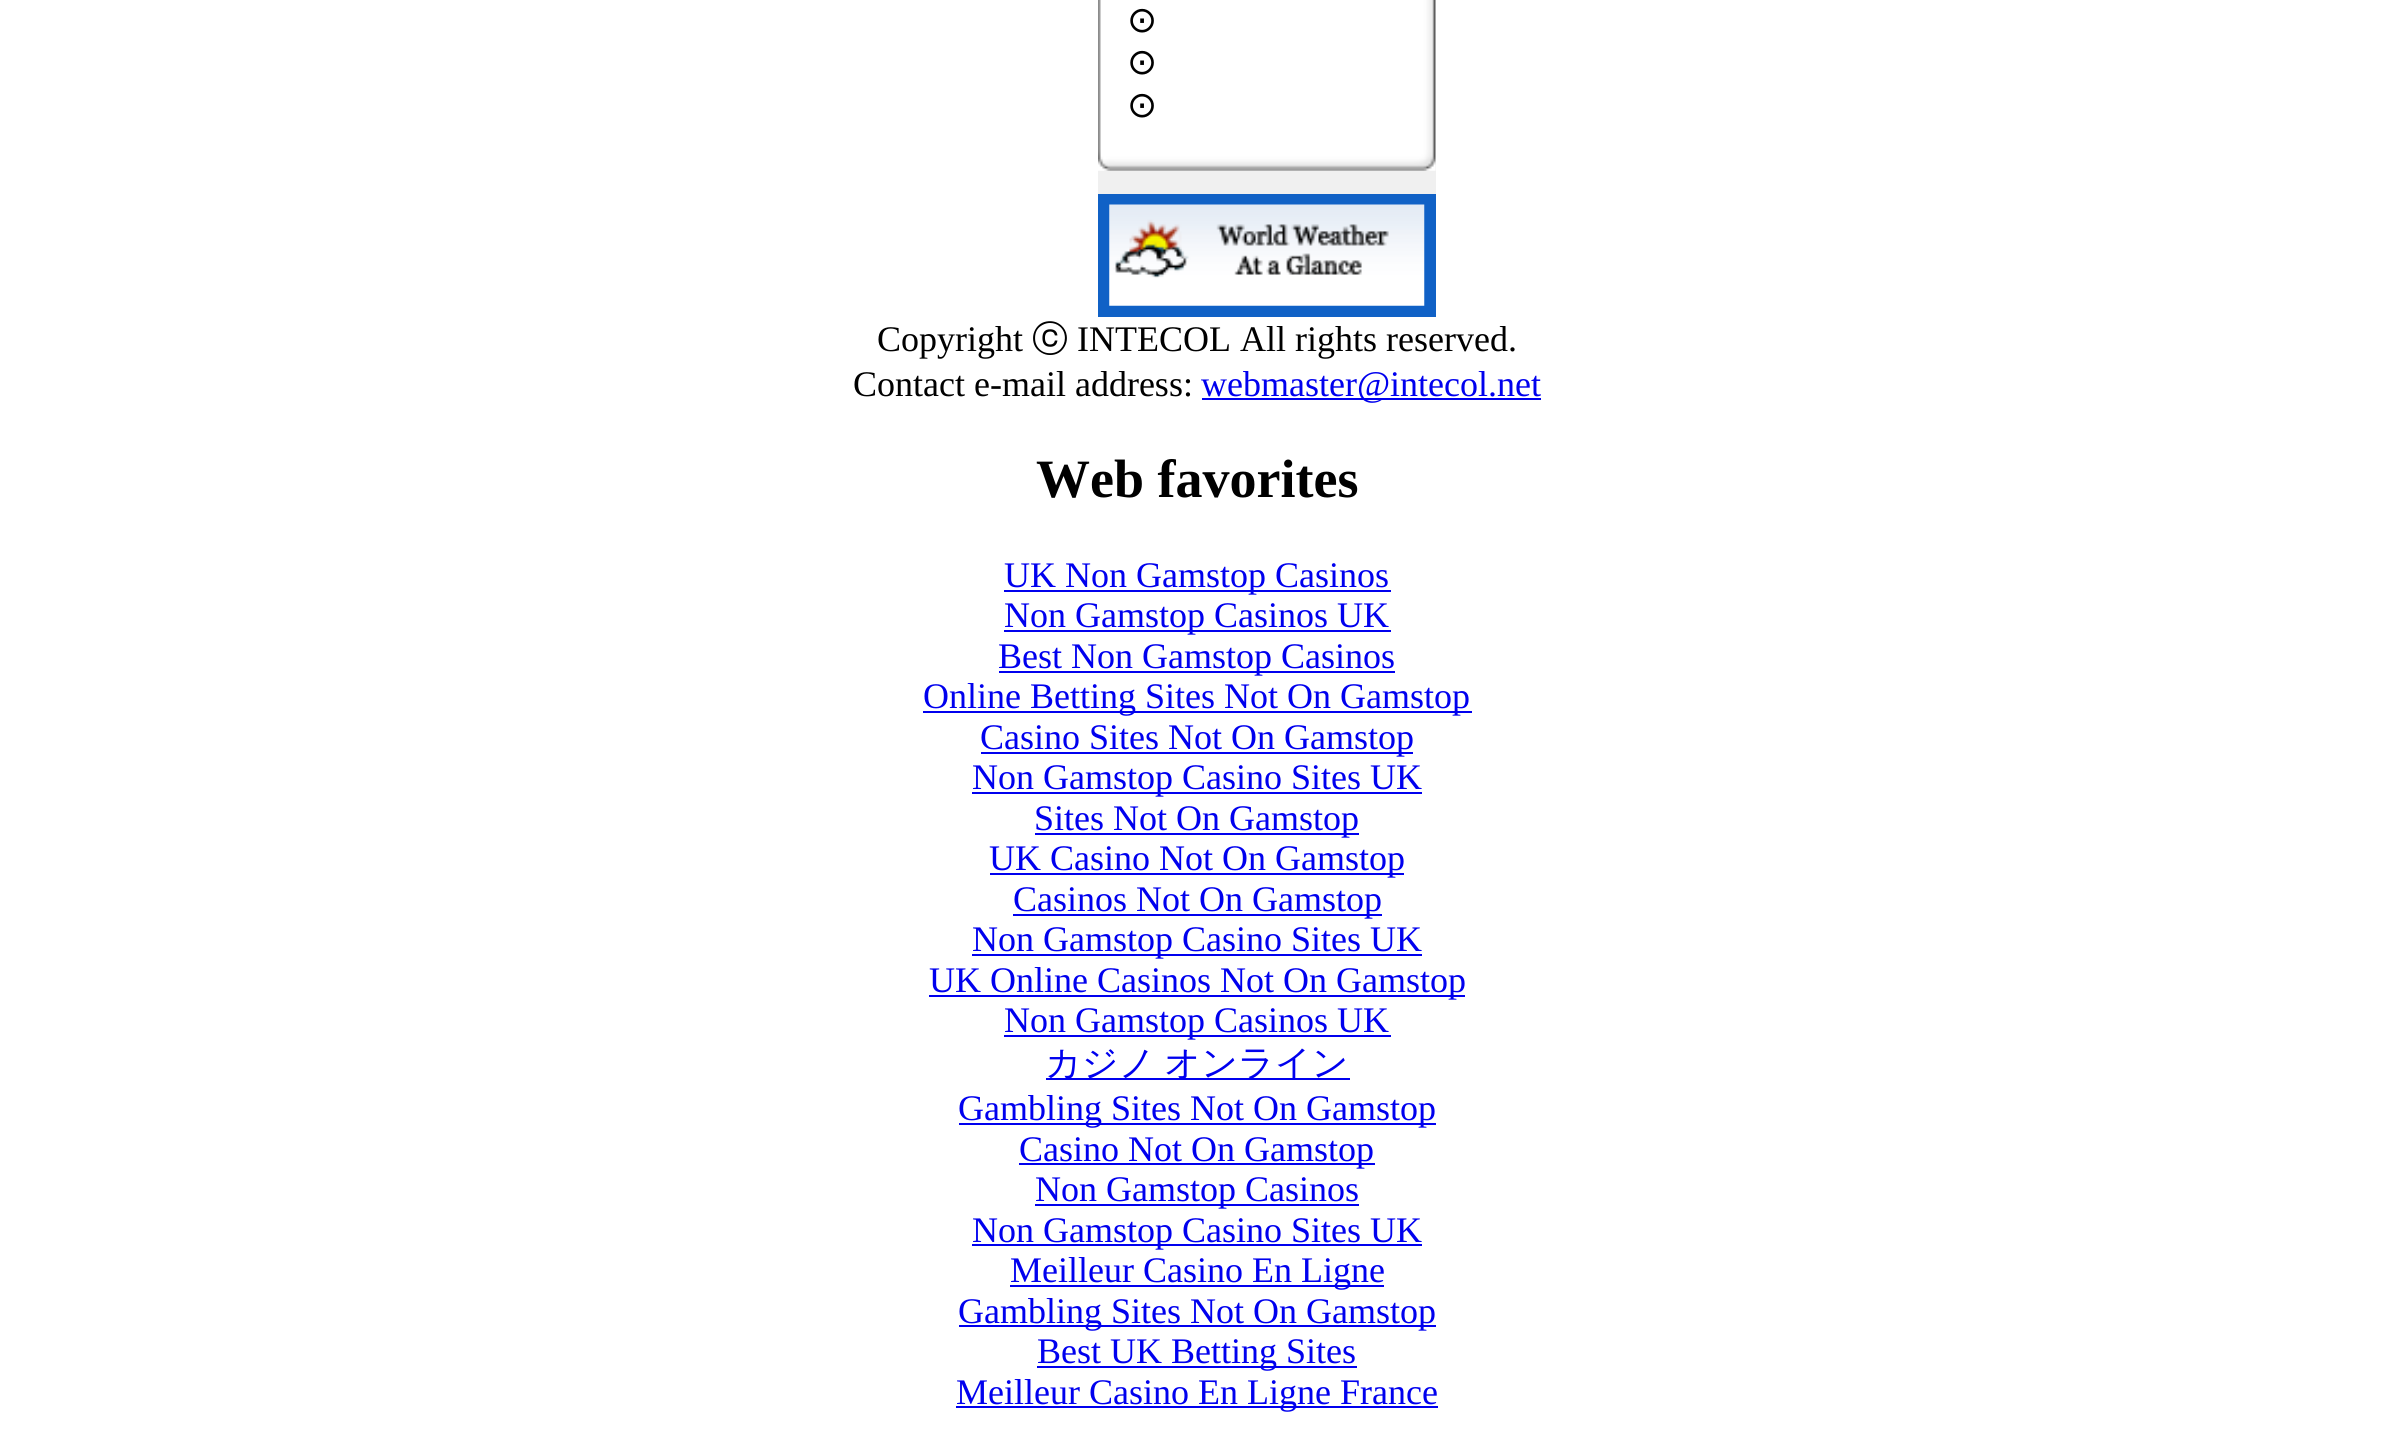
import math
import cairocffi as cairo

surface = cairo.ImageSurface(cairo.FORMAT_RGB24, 2392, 1449)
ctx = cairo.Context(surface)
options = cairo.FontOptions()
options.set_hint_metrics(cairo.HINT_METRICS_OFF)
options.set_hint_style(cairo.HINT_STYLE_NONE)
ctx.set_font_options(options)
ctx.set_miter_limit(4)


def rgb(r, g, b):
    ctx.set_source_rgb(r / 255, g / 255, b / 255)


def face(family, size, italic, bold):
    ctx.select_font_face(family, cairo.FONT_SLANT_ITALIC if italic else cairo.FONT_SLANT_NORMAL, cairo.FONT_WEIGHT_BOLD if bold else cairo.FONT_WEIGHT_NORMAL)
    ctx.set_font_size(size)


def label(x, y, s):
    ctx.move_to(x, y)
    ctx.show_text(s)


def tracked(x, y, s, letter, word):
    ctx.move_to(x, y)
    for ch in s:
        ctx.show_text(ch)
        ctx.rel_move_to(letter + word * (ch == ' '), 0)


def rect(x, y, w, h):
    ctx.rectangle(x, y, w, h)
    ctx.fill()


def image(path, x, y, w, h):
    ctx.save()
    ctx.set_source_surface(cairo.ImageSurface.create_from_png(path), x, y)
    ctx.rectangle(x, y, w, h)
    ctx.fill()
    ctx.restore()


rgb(255, 255, 255)
ctx.paint()
rgb(240, 240, 240)
rect(1098, 0, 338, 194)
image('image0.png', 1098, 0, 338, 137)
face('DejaVu Sans', 36, 0, 0)
rgb(0, 0, 0)
label(1127, 32, '⊙')
label(1127, 74, '⊙')
label(1127, 117, '⊙')
image('image1.png', 1098, 137, 338, 34)
rgb(16, 97, 198)
rect(1098, 194, 338, 123)
image('image2.png', 1109, 204, 316, 102)
face('Liberation Serif', 36, 0, 0)
rgb(0, 0, 0)
label(877, 351, 'Copyright')
face('WenQuanYi Zen Hei Medium', 36, 0, 0)
label(1032, 351, 'ⓒ')
face('Liberation Serif', 36, 0, 0)
label(1077, 351, 'INTECOL All rights reserved.')
label(853, 396, 'Contact e-mail address:')
rgb(0, 0, 238)
rect(1202, 398, 339, 2)
label(1201, 396, 'webmaster@intecol.net')
face('Liberation Serif', 54, 0, 1)
rgb(0, 0, 0)
label(1036, 497, 'Web favorites')
rgb(0, 0, 238)
rect(1004, 590, 387, 2)
face('Liberation Serif', 36, 0, 0)
label(1004, 587, 'UK Non Gamstop Casinos')
rect(1004, 630, 387, 2)
label(1004, 627, 'Non Gamstop Casinos UK')
rect(999, 671, 396, 2)
label(998, 668, 'Best Non Gamstop Casinos')
rect(923, 711, 549, 2)
label(923, 708, 'Online Betting Sites Not On Gamstop')
rect(981, 752, 432, 2)
label(980, 749, 'Casino Sites Not On Gamstop')
rect(972, 792, 450, 2)
label(972, 789, 'Non Gamstop Casino Sites UK')
rect(1035, 833, 324, 2)
label(1034, 830, 'Sites Not On Gamstop')
rect(990, 873, 414, 2)
label(989, 870, 'UK Casino Not On Gamstop')
rect(1013, 914, 369, 2)
label(1013, 911, 'Casinos Not On Gamstop')
rect(972, 954, 450, 2)
label(972, 951, 'Non Gamstop Casino Sites UK')
rect(929, 995, 536, 2)
label(929, 992, 'UK Online Casinos Not On Gamstop')
rect(1004, 1035, 387, 2)
label(1004, 1032, 'Non Gamstop Casinos UK')
rect(1046, 1078, 304, 2)
face('WenQuanYi Zen Hei Medium', 36, 0, 0)
tracked(1045, 1075, 'カジノ オンライン', 0, -2)
rect(959, 1123, 477, 2)
face('Liberation Serif', 36, 0, 0)
label(958, 1120, 'Gambling Sites Not On Gamstop')
rect(1019, 1163, 356, 2)
label(1019, 1161, 'Casino Not On Gamstop')
rect(1035, 1204, 324, 2)
label(1035, 1201, 'Non Gamstop Casinos')
rect(972, 1244, 450, 2)
label(972, 1242, 'Non Gamstop Casino Sites UK')
rect(1010, 1285, 374, 2)
label(1010, 1282, 'Meilleur Casino En Ligne')
rect(959, 1325, 477, 2)
label(958, 1323, 'Gambling Sites Not On Gamstop')
rect(1037, 1366, 320, 2)
label(1037, 1363, 'Best UK Betting Sites')
rect(956, 1406, 482, 2)
label(956, 1404, 'Meilleur Casino En Ligne France')
surface.write_to_png('render.png')
